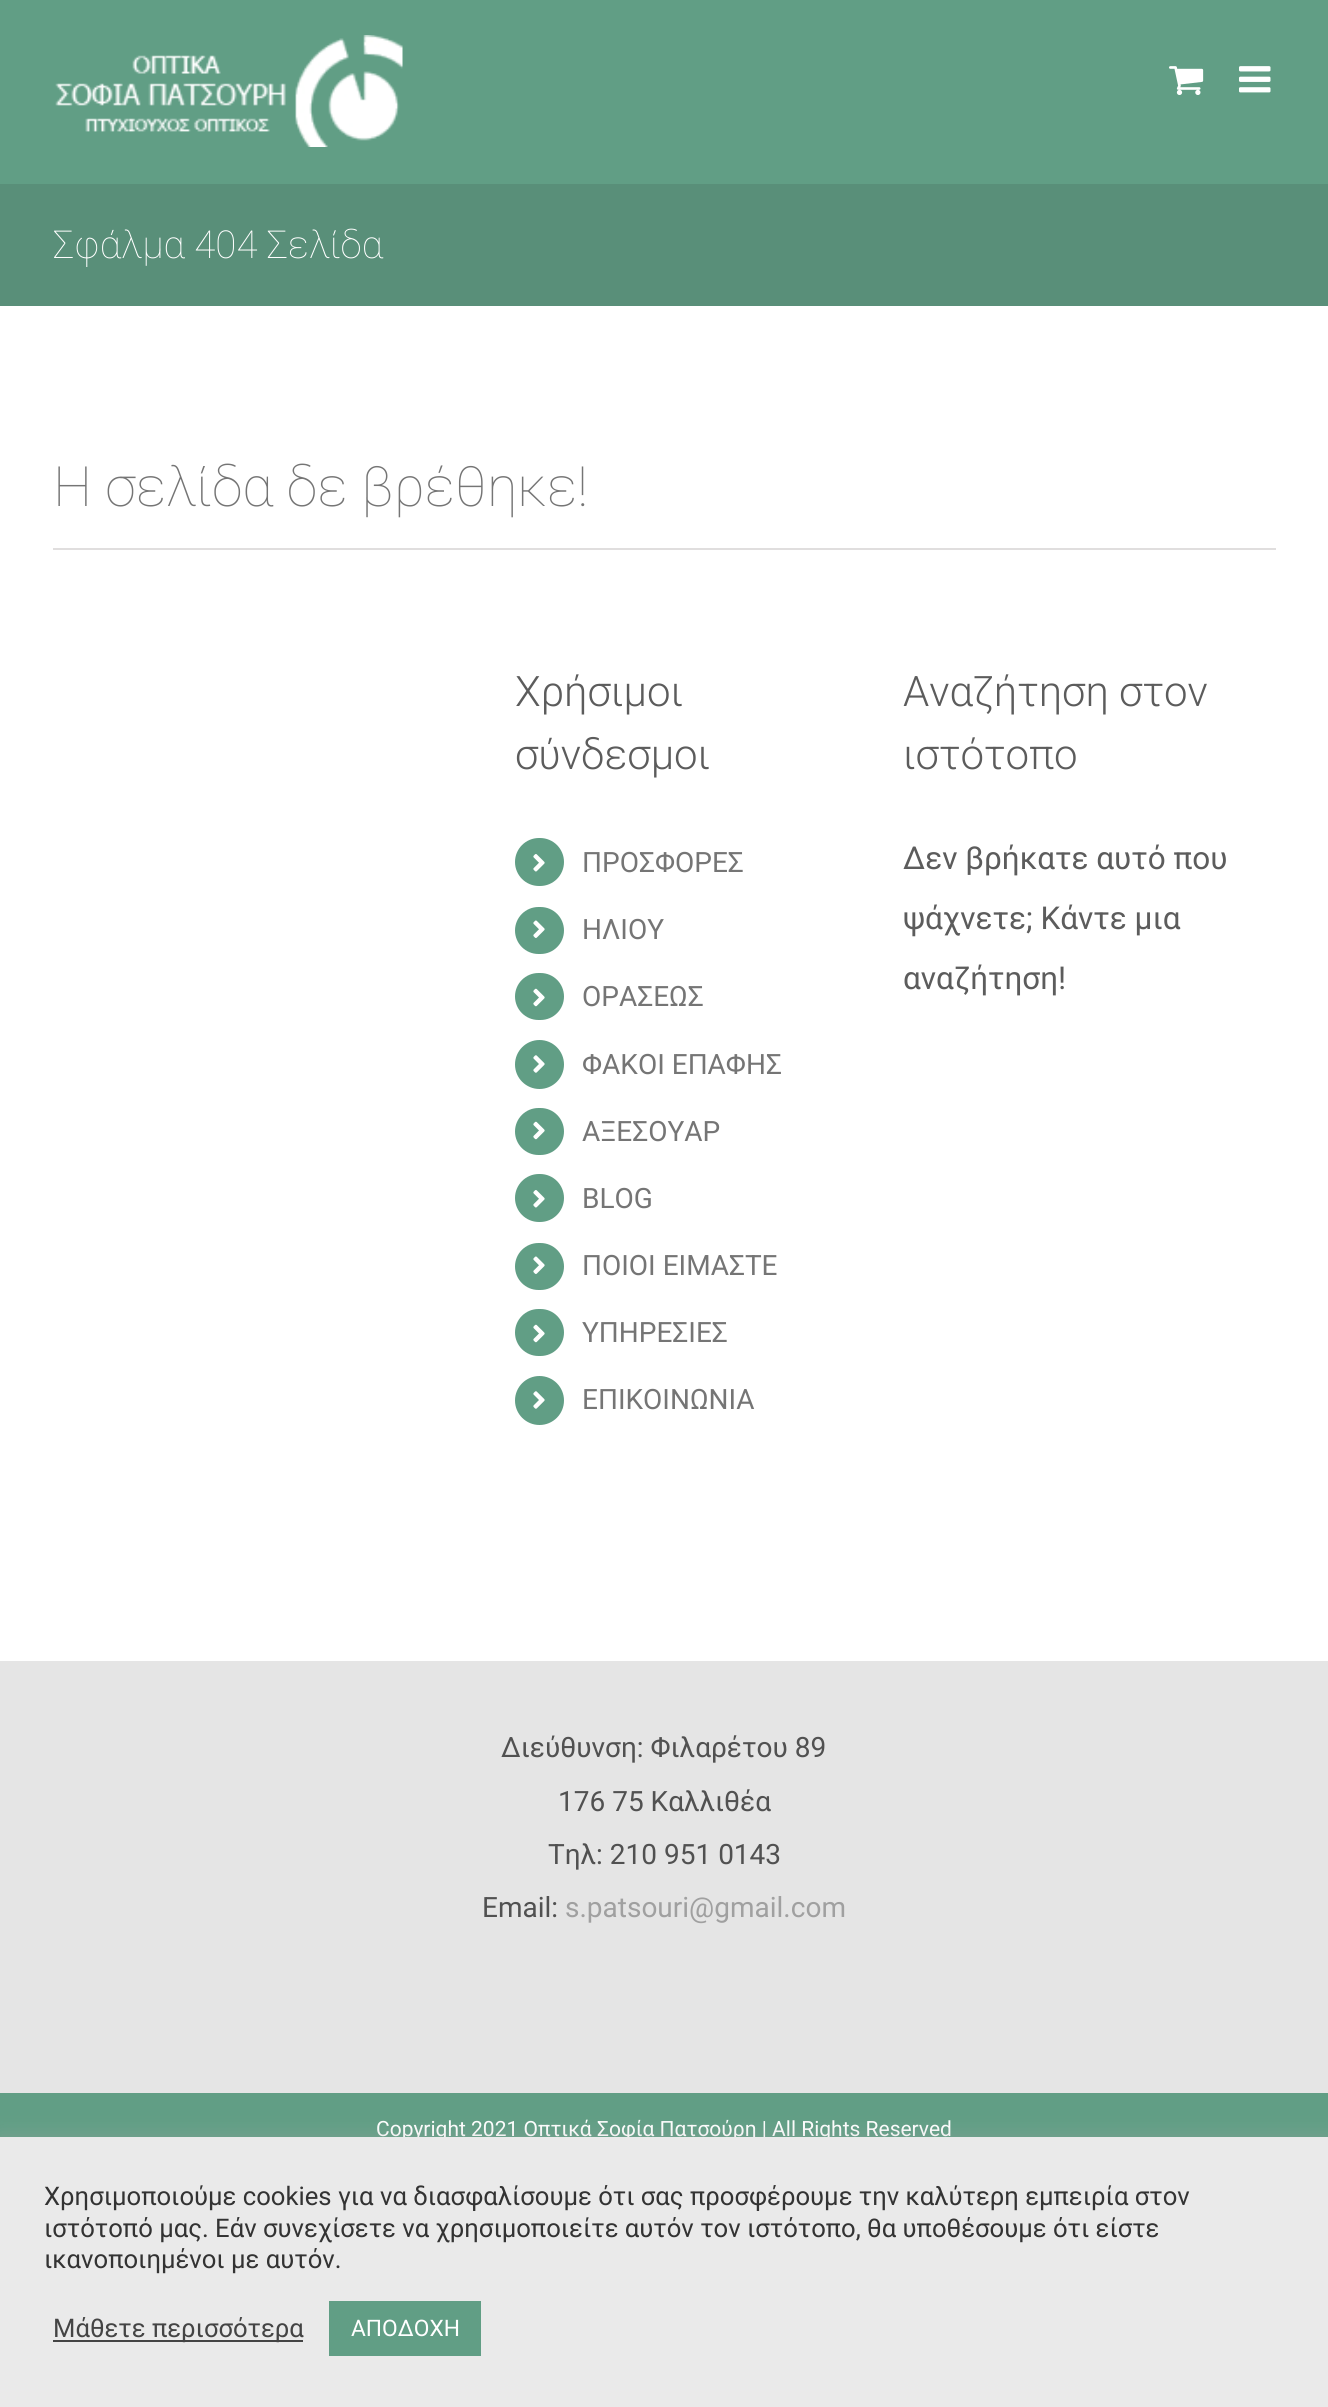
import math
import cairocffi as cairo

surface = cairo.ImageSurface(cairo.FORMAT_RGB24, 1328, 2407)
ctx = cairo.Context(surface)
options = cairo.FontOptions()
options.set_hint_metrics(cairo.HINT_METRICS_OFF)
options.set_hint_style(cairo.HINT_STYLE_NONE)
ctx.set_font_options(options)
ctx.set_miter_limit(4)


def rgb(r, g, b):
    ctx.set_source_rgb(r / 255, g / 255, b / 255)


def face(family, size, italic, bold):
    ctx.select_font_face(family, cairo.FONT_SLANT_ITALIC if italic else cairo.FONT_SLANT_NORMAL, cairo.FONT_WEIGHT_BOLD if bold else cairo.FONT_WEIGHT_NORMAL)
    ctx.set_font_size(size)


def label(x, y, s):
    ctx.move_to(x, y)
    ctx.show_text(s)


def rect(x, y, w, h):
    ctx.rectangle(x, y, w, h)
    ctx.fill()


def rrect(x, y, w, h, r):
    ctx.new_sub_path()
    for i, (u, v) in enumerate([(x + w - r, y + h - r), (x + r, y + h - r), (x + r, y + r), (x + w - r, y + r)]):
        ctx.arc(u, v, r, i * math.pi / 2, (i + 1) * math.pi / 2)
    ctx.close_path()


def soft_shadow(x, y, w, h, r, blur, alpha):
    ctx.push_group_with_content(cairo.CONTENT_ALPHA)
    ctx.set_operator(cairo.OPERATOR_SOURCE)
    for i in range(15, -16, -2):
        e = blur * i / 6
        if min(w, h) + 2 * e > 0:
            ctx.set_source_rgba(0, 0, 0, alpha * math.erfc((i - 1) / 8.5) / 2)
            rrect(x - e, y - e, w + 2 * e, h + 2 * e, max(0, min(r + e + blur * .6, min(w, h) / 2 + e)))
            ctx.fill()
    ctx.mask(ctx.pop_group())


def image(path, x, y, w, h):
    ctx.save()
    ctx.set_source_surface(cairo.ImageSurface.create_from_png(path), x, y)
    ctx.rectangle(x, y, w, h)
    ctx.fill()
    ctx.restore()


rgb(255, 255, 255)
ctx.paint()
rgb(97, 158, 133)
rect(0, 0, 1328, 184)
image('image0.png', 55, 35, 348, 112)
image('image1.png', 1169, 66, 35, 29)
image('image2.png', 1239, 66, 32, 27)
rgb(89, 143, 121)
rect(0, 184, 1328, 122)
face('Roboto Thin', 38.5, 0, 0)
rgb(255, 255, 255)
label(53, 258, 'Σφάλμα 404 Σελίδα')
rgb(224, 222, 222)
rect(53, 548, 1223, 2)
face('Roboto Thin', 55.6, 0, 0)
rgb(117, 117, 117)
label(53, 506, 'Η σελίδα δε βρέθηκε!')
face('Roboto Light', 42, 0, 0)
rgb(92, 92, 92)
label(515, 706, 'Χρήσιμοι')
label(515, 769, 'σύνδεσμοι')
rgb(97, 158, 133)
rrect(515, 838, 49, 48, 24)
ctx.fill()
image('image3.png', 533, 854, 12, 18)
face('Roboto', 28, 0, 0)
rgb(117, 117, 117)
label(582, 872, 'ΠΡΟΣΦΟΡΕΣ')
rgb(97, 158, 133)
rrect(515, 907, 49, 47, 23.5)
ctx.fill()
image('image4.png', 533, 920, 12, 18)
rgb(117, 117, 117)
label(582, 939, 'ΗΛΙΟΥ')
rgb(97, 158, 133)
rrect(515, 973, 49, 47, 23.5)
ctx.fill()
image('image5.png', 533, 988, 12, 19)
rgb(117, 117, 117)
label(582, 1006, 'ΟΡΑΣΕΩΣ')
rgb(97, 158, 133)
ctx.new_path()
ctx.arc(539.5, 1064.5, 24.5, 0, 2 * math.pi)
ctx.fill()
image('image6.png', 533, 1055, 12, 18)
rgb(117, 117, 117)
label(582, 1074, 'ΦΑΚΟΙ ΕΠΑΦΗΣ')
rgb(97, 158, 133)
rrect(515, 1108, 49, 47, 23.5)
ctx.fill()
image('image5.png', 533, 1121, 12, 19)
rgb(117, 117, 117)
label(582, 1141, 'ΑΞΕΣΟΥΑΡ')
rgb(97, 158, 133)
rrect(515, 1174, 49, 48, 24)
ctx.fill()
image('image3.png', 533, 1190, 12, 18)
rgb(117, 117, 117)
label(582, 1208, 'BLOG')
rgb(97, 158, 133)
rrect(515, 1243, 49, 47, 23.5)
ctx.fill()
image('image4.png', 533, 1256, 12, 18)
rgb(117, 117, 117)
label(582, 1275, 'ΠΟΙΟΙ ΕΙΜΑΣΤΕ')
rgb(97, 158, 133)
rrect(515, 1309, 49, 47, 23.5)
ctx.fill()
image('image5.png', 533, 1324, 12, 19)
rgb(117, 117, 117)
label(582, 1342, 'ΥΠΗΡΕΣΙΕΣ')
rgb(97, 158, 133)
ctx.new_path()
ctx.arc(539.5, 1400.5, 24.5, 0, 2 * math.pi)
ctx.fill()
image('image6.png', 533, 1391, 12, 18)
rgb(117, 117, 117)
label(582, 1409, 'ΕΠΙΚΟΙΝΩΝΙΑ')
face('Roboto Light', 42, 0, 0)
rgb(92, 92, 92)
label(903, 706, 'Αναζήτηση στον')
label(903, 769, 'ιστότοπο')
face('Roboto', 31.5, 0, 0)
label(903, 869, 'Δεν βρήκατε αυτό που')
label(903, 929, 'ψάχνετε; Κάντε μια')
label(903, 989, 'αναζήτηση!')
rgb(229, 229, 229)
rect(0, 1661, 1328, 432)
face('Roboto', 28, 0, 0)
rgb(81, 81, 81)
label(501, 1757, 'Διεύθυνση: Φιλαρέτου 89')
label(558, 1811, '176 75 Καλλιθέα')
label(548, 1864, 'Τηλ: 210 951 0143')
label(482, 1917, 'Email:')
rgb(160, 160, 160)
label(565, 1917, 's.patsouri@gmail.com')
rgb(97, 158, 133)
rect(0, 2093, 1328, 44)
face('Roboto', 21, 0, 0)
rgb(255, 255, 255)
label(376, 2136, 'Copyright 2021 Οπτικά Σοφία Πατσούρη | All Rights Reserved')
rgb(172, 171, 171)
soft_shadow(0, 2135, 1328, 271, 0, 9, 0.3)
rgb(234, 234, 234)
rect(0, 2137, 1328, 270)
face('Roboto', 25.65, 0, 0)
rgb(51, 51, 51)
label(44, 2205, 'Χρησιμοποιούμε cookies για να διασφαλίσουμε ότι σας προσφέρουμε την καλύτερη εμπειρία στον')
label(44, 2237, 'ιστότοπό μας. Εάν συνεχίσετε να χρησιμοποιείτε αυτόν τον ιστότοπο, θα υποθέσουμε ότι είστε')
label(44, 2268, 'ικανοποιημένοι με αυτόν.')
rgb(68, 68, 68)
rect(53, 2340, 250, 2)
label(53, 2337, 'Μάθετε περισσότερα')
rgb(97, 158, 133)
rect(329, 2301, 152, 55)
face('Roboto', 22.75, 0, 0)
rgb(255, 255, 255)
label(351, 2336, 'ΑΠΟΔΟΧΗ')
surface.write_to_png('render.png')
